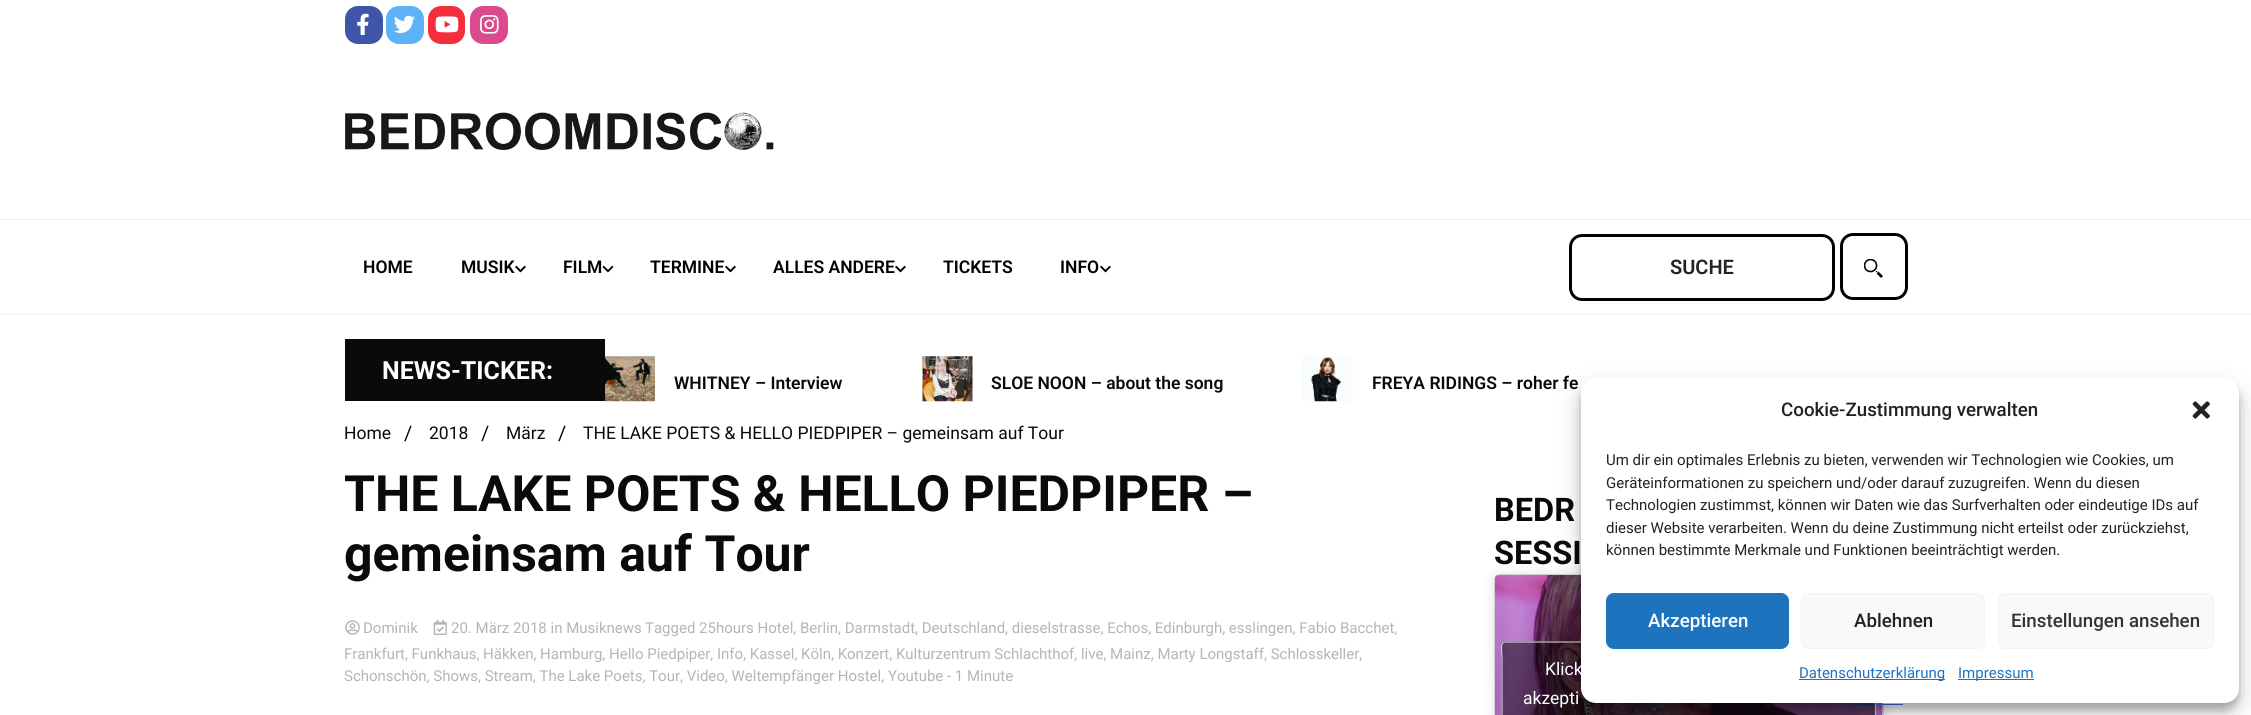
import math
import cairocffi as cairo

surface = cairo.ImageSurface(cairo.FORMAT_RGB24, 2251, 715)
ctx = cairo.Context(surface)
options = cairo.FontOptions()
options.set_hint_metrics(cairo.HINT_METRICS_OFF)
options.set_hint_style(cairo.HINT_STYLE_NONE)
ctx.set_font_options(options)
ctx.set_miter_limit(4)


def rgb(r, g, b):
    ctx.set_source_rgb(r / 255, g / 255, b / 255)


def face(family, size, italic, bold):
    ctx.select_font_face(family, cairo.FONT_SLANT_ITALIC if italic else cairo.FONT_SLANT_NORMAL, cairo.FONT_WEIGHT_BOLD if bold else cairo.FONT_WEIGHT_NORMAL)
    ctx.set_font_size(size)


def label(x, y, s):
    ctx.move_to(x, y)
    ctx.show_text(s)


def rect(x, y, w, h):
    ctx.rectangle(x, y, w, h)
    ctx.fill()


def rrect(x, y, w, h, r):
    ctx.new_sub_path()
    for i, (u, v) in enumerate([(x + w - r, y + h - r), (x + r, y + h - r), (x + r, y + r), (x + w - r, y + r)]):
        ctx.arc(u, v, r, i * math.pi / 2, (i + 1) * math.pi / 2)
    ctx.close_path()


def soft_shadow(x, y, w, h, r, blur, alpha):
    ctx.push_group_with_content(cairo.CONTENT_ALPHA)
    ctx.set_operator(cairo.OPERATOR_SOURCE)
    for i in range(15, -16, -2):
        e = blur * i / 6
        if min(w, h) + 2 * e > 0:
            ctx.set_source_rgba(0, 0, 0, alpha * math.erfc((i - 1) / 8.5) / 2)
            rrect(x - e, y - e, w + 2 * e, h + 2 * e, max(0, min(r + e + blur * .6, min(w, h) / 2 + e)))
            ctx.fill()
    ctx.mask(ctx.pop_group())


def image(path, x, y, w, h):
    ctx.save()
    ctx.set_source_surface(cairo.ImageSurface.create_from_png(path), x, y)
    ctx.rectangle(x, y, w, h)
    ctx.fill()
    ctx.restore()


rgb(255, 255, 255)
ctx.paint()
rgb(63, 85, 167)
rrect(345, 6, 38, 38, 13)
ctx.fill()
image('image0.png', 357, 13, 12, 22)
rgb(93, 178, 247)
rrect(386, 6, 38, 38, 13)
ctx.fill()
image('image1.png', 394, 15, 21, 18)
rgb(246, 45, 58)
rrect(428, 6, 37, 38, 13)
ctx.fill()
image('image2.png', 435, 16, 24, 17)
rgb(218, 74, 140)
rrect(470, 6, 38, 38, 13)
ctx.fill()
image('image3.png', 480, 15, 19, 19)
image('image4.png', 345, 112, 429, 38)
ctx.rectangle(-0.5, 219.5, 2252, 95)
rgb(240, 240, 240)
ctx.set_line_width(1)
ctx.stroke()
face('Roboto SemiBold', 17.5, 0, 0)
rgb(0, 0, 0)
label(363, 273, 'HOME')
label(461, 273, 'MUSIK')
image('image5.png', 515, 265, 11, 8)
label(563, 273, 'FILM')
image('image6.png', 602, 265, 12, 8)
label(650, 273, 'TERMINE')
image('image5.png', 725, 265, 11, 8)
label(773, 273, 'ALLES ANDERE')
image('image5.png', 895, 265, 11, 8)
label(943, 273, 'TICKETS')
label(1060, 273, 'INFO')
image('image5.png', 1100, 265, 11, 8)
rrect(1570.5, 235.5, 263, 64, 11.5)
ctx.set_line_width(3)
ctx.stroke()
face('Roboto SemiBold', 20, 0, 0)
rgb(34, 34, 34)
label(1670, 274, 'SUCHE')
rrect(1841.5, 234.5, 65, 64, 11.5)
rgb(0, 0, 0)
ctx.stroke()
image('image7.png', 1864, 259, 19, 19)
rgb(10, 10, 10)
rect(345, 339, 260, 62)
face('Roboto', 25, 0, 1)
rgb(255, 255, 255)
label(382, 379, 'NEWS-TICKER:')
image('image8.png', 605, 356, 50, 46)
rgb(10, 10, 10)
ctx.new_path()
ctx.move_to(600, 390)
ctx.line_to(600, 352.5)
ctx.line_to(616, 371)
ctx.close_path()
ctx.fill()
face('Roboto SemiBold', 17.5, 0, 0)
label(674, 389, 'WHITNEY – Interview')
image('image9.png', 922, 356, 51, 46)
label(991, 389, 'SLOE NOON – about the song')
image('image10.png', 1302, 356, 51, 46)
label(1372, 389, 'FREYA RIDINGS – roher fe')
face('Roboto', 17.5, 0, 0)
label(344, 439, 'Home')
face('Roboto', 20, 0, 0)
label(404, 440, '/')
face('Roboto', 17.5, 0, 0)
label(429, 439, '2018')
face('Roboto', 20, 0, 0)
label(481, 440, '/')
face('Roboto', 17.5, 0, 0)
label(506, 439, 'März')
face('Roboto', 20, 0, 0)
label(558, 440, '/')
face('Roboto', 17.5, 0, 0)
label(583, 439, 'THE LAKE POETS & HELLO PIEDPIPER – gemeinsam auf Tour')
rgb(0, 0, 0)
soft_shadow(1495, 576, 388, 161, 4, 6, 0.15)
soft_shadow(1495, 575, 388, 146, 4, 0.5, 0.5)
rgb(255, 255, 255)
rrect(1495, 575, 388, 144, 4)
ctx.fill()
image('image14.png', 1495, 575, 388, 140)
rgb(65, 105, 225)
rect(1849, 704, 54, 1)
ctx.set_source_rgba(0, 0, 0, 0.5)
rrect(1501, 641, 375, 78, 4)
ctx.fill()
ctx.new_path()
ctx.move_to(1503, 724.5)
ctx.line_to(1502, 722.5)
ctx.line_to(1502, 658)
ctx.curve_to(1502, 652, 1499.5, 642, 1505, 642)
ctx.line_to(1872.5, 642)
ctx.curve_to(1878, 642, 1875.5, 652, 1875.5, 658)
ctx.line_to(1875.5, 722.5)
ctx.line_to(1874.5, 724.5)
rgb(204, 204, 204)
ctx.set_line_width(1.2)
ctx.stroke()
rgb(0, 0, 0)
soft_shadow(1581, 385, 658, 325, 15, 4, 0.23)
soft_shadow(1581, 390, 658, 325, 15, 12.5, 0.19)
rgb(255, 255, 255)
rrect(1581, 378, 658, 325, 15)
ctx.fill()
face('Roboto Medium', 18.75, 0, 0)
rgb(34, 34, 34)
label(1781, 416, 'Cookie-Zustimmung verwalten')
image('image11.png', 2192, 401, 18, 18)
face('Roboto', 15, 0, 0)
label(1606, 465, 'Um dir ein optimales Erlebnis zu bieten, verwenden wir Technologien wie Cookies, um')
label(1606, 488, 'Geräteinformationen zu speichern und/oder darauf zuzugreifen. Wenn du diesen')
label(1606, 510, 'Technologien zustimmst, können wir Daten wie das Surfverhalten oder eindeutige IDs auf')
label(1606, 533, 'dieser Website verarbeiten. Wenn du deine Zustimmung nicht erteilst oder zurückziehst,')
label(1606, 555, 'können bestimmte Merkmale und Funktionen beeinträchtigt werden.')
rgb(30, 115, 190)
rrect(1606.5, 593.5, 182, 55, 7.5)
ctx.fill_preserve()
ctx.set_line_width(1)
ctx.stroke()
face('Roboto Medium', 18.75, 0, 0)
rgb(255, 255, 255)
label(1648, 627, 'Akzeptieren')
rgb(249, 249, 249)
rrect(1801.5, 593.5, 183, 55, 7.5)
ctx.fill_preserve()
rgb(242, 242, 242)
ctx.stroke()
rgb(34, 34, 34)
label(1854, 627, 'Ablehnen')
rgb(249, 249, 249)
rrect(1998.5, 593.5, 215, 55, 7.5)
ctx.fill_preserve()
rgb(242, 242, 242)
ctx.stroke()
rgb(51, 51, 51)
label(2011, 627, 'Einstellungen ansehen')
rgb(30, 115, 190)
rect(1799, 679, 146, 1)
face('Roboto', 15, 0, 0)
label(1799, 678, 'Datenschutzerklärung')
rect(1958, 679, 76, 1)
label(1958, 678, 'Impressum')
face('Roboto', 50, 0, 1)
rgb(10, 10, 10)
label(344, 511, 'THE LAKE POETS & HELLO PIEDPIPER –')
label(344, 571, 'gemeinsam auf Tour')
image('image12.png', 345, 620, 15, 15)
face('Roboto', 15, 0, 0)
rgb(181, 181, 181)
label(363, 633, 'Dominik')
image('image13.png', 433, 620, 14, 15)
label(451, 633, '20. März 2018 in Musiknews')
label(645, 633, 'Tagged 25hours Hotel, Berlin, Darmstadt, Deutschland, dieselstrasse, Echos, Edinburgh, esslingen, Fabio Bacchet,')
label(344, 659, 'Frankfurt, Funkhaus, Häkken, Hamburg, Hello Piedpiper, Info, Kassel, Köln, Konzert, Kulturzentrum Schlachthof, live, Mainz, Marty Longstaff, Schlosskeller,')
label(344, 681, 'Schonschön, Shows, Stream, The Lake Poets, Tour, Video, Weltempfänger Hostel, Youtube - 1 Minute')
face('Roboto', 32.5, 0, 1)
rgb(10, 10, 10)
label(1494, 521, 'BEDR')
label(1494, 564, 'SESSI')
face('Roboto', 17.5, 0, 0)
rgb(255, 255, 255)
label(1545, 675, 'Klick')
label(1523, 704, 'akzepti')
surface.write_to_png('render.png')
